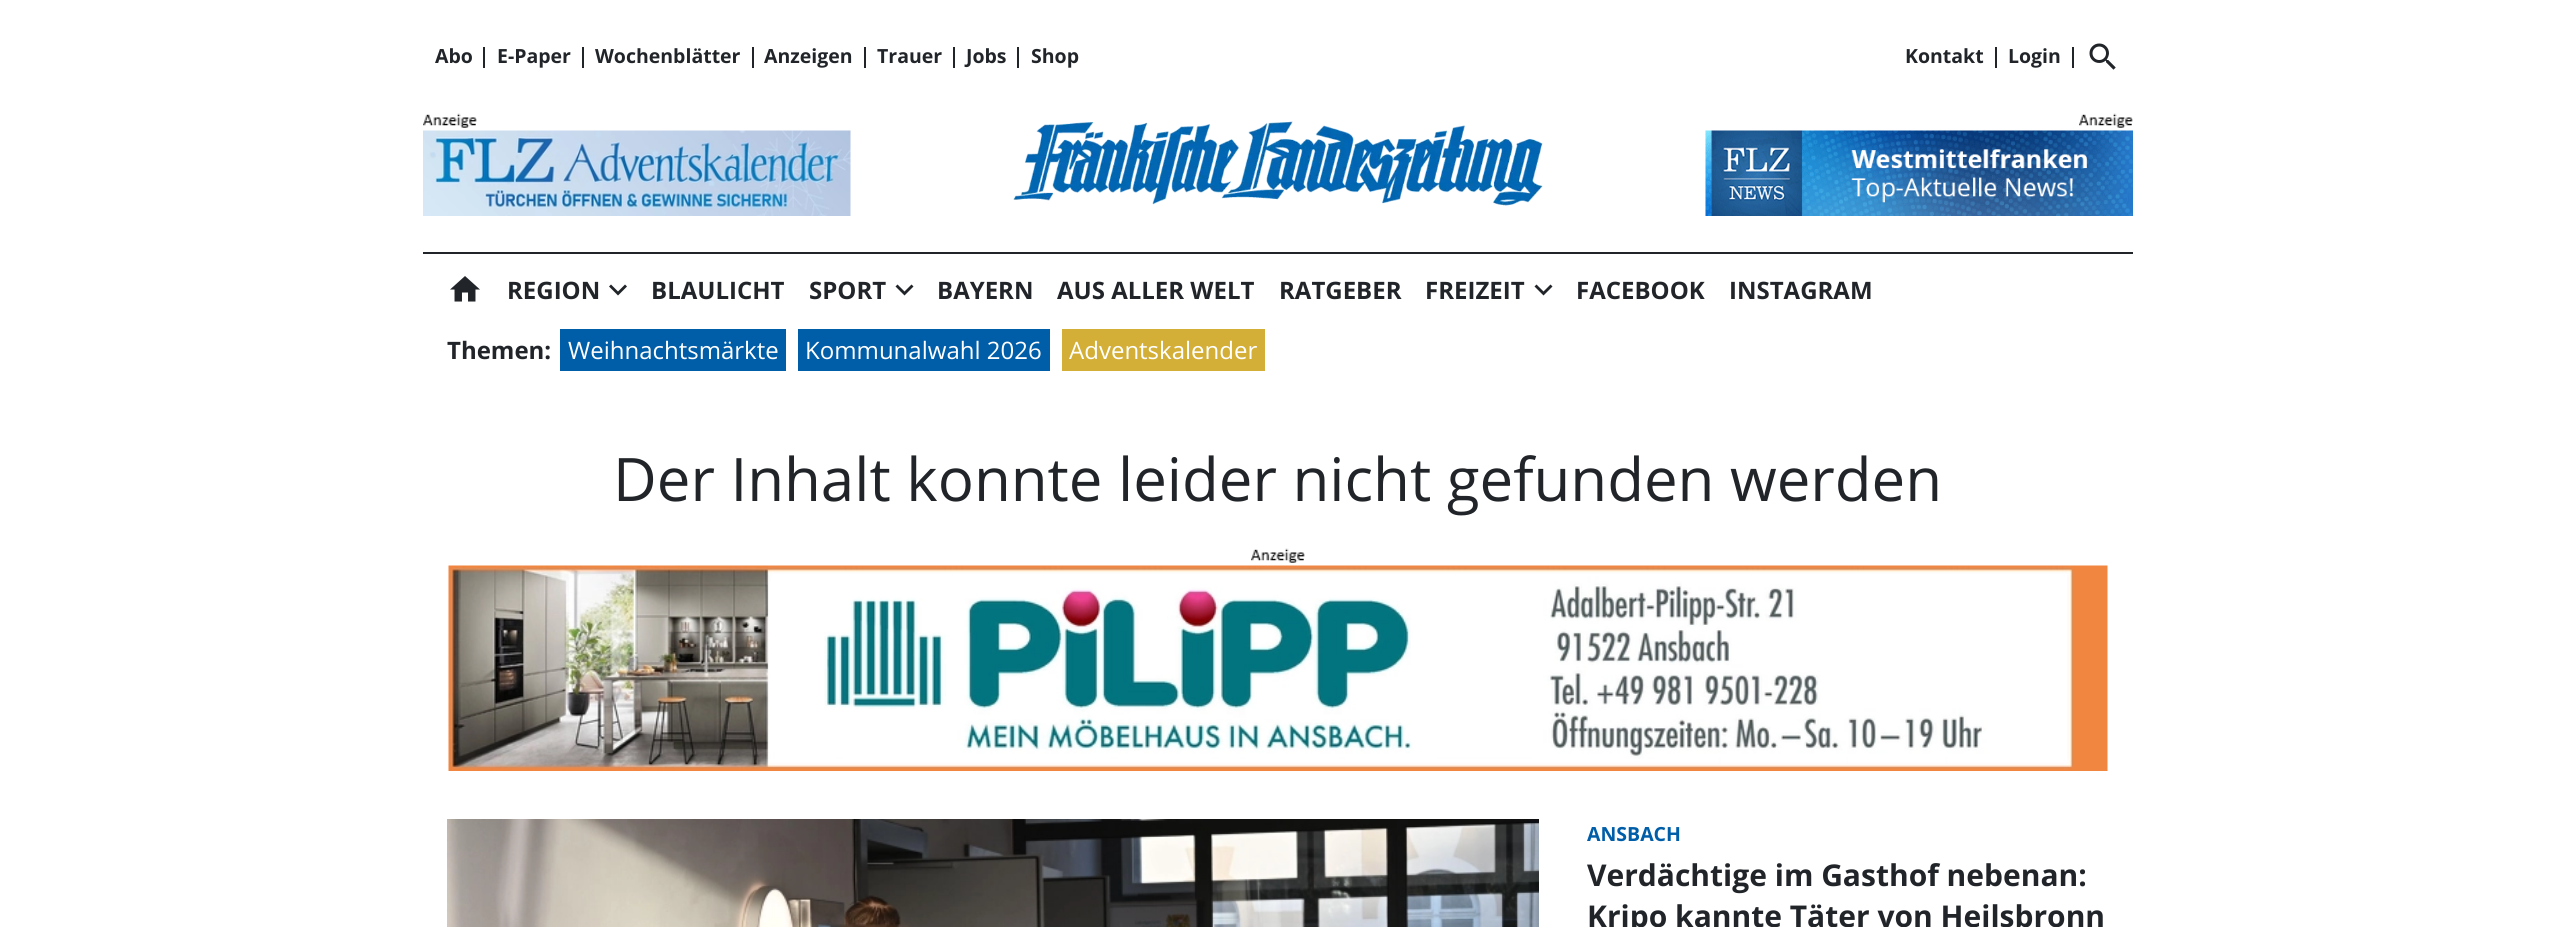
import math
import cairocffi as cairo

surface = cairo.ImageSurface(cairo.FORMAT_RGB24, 2556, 927)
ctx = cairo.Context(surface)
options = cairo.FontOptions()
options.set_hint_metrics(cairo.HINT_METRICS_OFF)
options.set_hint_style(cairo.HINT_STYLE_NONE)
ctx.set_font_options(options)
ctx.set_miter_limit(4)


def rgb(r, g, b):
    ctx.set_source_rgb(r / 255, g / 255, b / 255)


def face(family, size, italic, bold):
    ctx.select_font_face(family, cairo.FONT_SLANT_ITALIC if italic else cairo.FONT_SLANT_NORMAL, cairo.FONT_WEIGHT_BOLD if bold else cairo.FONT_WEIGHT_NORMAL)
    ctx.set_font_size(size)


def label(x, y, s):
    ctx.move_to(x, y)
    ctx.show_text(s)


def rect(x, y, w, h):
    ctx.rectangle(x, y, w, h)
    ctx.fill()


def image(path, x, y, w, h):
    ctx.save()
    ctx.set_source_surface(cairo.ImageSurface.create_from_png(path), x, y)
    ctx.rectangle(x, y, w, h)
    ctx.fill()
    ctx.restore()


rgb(255, 255, 255)
ctx.paint()
face('Open Sans', 19.5, 0, 1)
rgb(33, 37, 41)
label(435, 63, 'Abo')
rect(483, 47, 2, 21)
label(497, 63, 'E-Paper')
rect(582, 47, 2, 21)
label(595, 63, 'Wochenblätter')
rect(752, 47, 2, 21)
label(764, 63, 'Anzeigen')
rect(864, 47, 2, 21)
label(877, 63, 'Trauer')
rect(953, 47, 2, 21)
label(966, 63, 'Jobs')
rect(1017, 47, 2, 21)
label(1031, 63, 'Shop')
label(1905, 63, 'Kontakt')
rect(1995, 47, 2, 21)
label(2008, 63, 'Login')
rect(2072, 47, 2, 21)
image('image0.png', 2089, 43, 27, 27)
image('image1.png', 423, 113, 54, 15)
image('image2.png', 423, 130, 428, 86)
image('image3.png', 1013, 121, 530, 85)
image('image4.png', 2079, 113, 54, 15)
image('image5.png', 1705, 130, 428, 86)
rect(423, 252, 1710, 2)
image('image6.png', 450, 276, 30, 26)
face('Open Sans', 24, 0, 1)
label(507, 299, 'REGION')
ctx.new_path()
ctx.move_to(625, 284.5)
ctx.line_to(627, 286.5)
ctx.line_to(618, 295.5)
ctx.line_to(609, 286.5)
ctx.line_to(611, 284.5)
ctx.line_to(618, 291.5)
ctx.close_path()
ctx.fill()
label(651, 299, 'BLAULICHT')
label(809, 299, 'SPORT')
ctx.new_path()
ctx.move_to(911.5, 284.5)
ctx.line_to(913.5, 286.5)
ctx.line_to(904.5, 295.5)
ctx.line_to(895.5, 286.5)
ctx.line_to(897.5, 284.5)
ctx.line_to(904.5, 291.5)
ctx.close_path()
ctx.fill()
label(937, 299, 'BAYERN')
label(1057, 299, 'AUS ALLER WELT')
label(1279, 299, 'RATGEBER')
label(1425, 299, 'FREIZEIT')
ctx.new_path()
ctx.move_to(1550.5, 284.5)
ctx.line_to(1552.5, 286.5)
ctx.line_to(1543.5, 295.5)
ctx.line_to(1534.5, 286.5)
ctx.line_to(1536.5, 284.5)
ctx.line_to(1543.5, 291.5)
ctx.close_path()
ctx.fill()
label(1576, 299, 'FACEBOOK')
label(1729, 299, 'INSTAGRAM')
label(447, 359, 'Themen:')
rgb(0, 93, 168)
rect(560, 329, 226, 42)
face('Open Sans', 24, 0, 0)
rgb(255, 255, 255)
label(568, 359, 'Weihnachtsmärkte')
rgb(0, 93, 168)
rect(798, 329, 252, 42)
rgb(255, 255, 255)
label(805, 359, 'Kommunalwahl 2026')
rgb(211, 175, 55)
rect(1062, 329, 203, 42)
rgb(255, 255, 255)
label(1069, 359, 'Adventskalender')
face('Open Sans', 60, 0, 0)
rgb(33, 37, 41)
label(613, 501, 'Der Inhalt konnte leider nicht gefunden werden')
image('image7.png', 1251, 548, 54, 15)
image('image8.png', 448, 565, 1660, 206)
image('image9.png', 447, 819, 1092, 108)
face('Open Sans', 19.5, 0, 1)
rgb(0, 93, 168)
label(1587, 841, 'ANSBACH')
face('Open Sans', 30, 0, 1)
rgb(33, 37, 41)
label(1587, 886, 'Verdächtige im Gasthof nebenan:')
label(1587, 927, 'Kripo kannte Täter von Heilsbronn')
surface.write_to_png('render.png')
